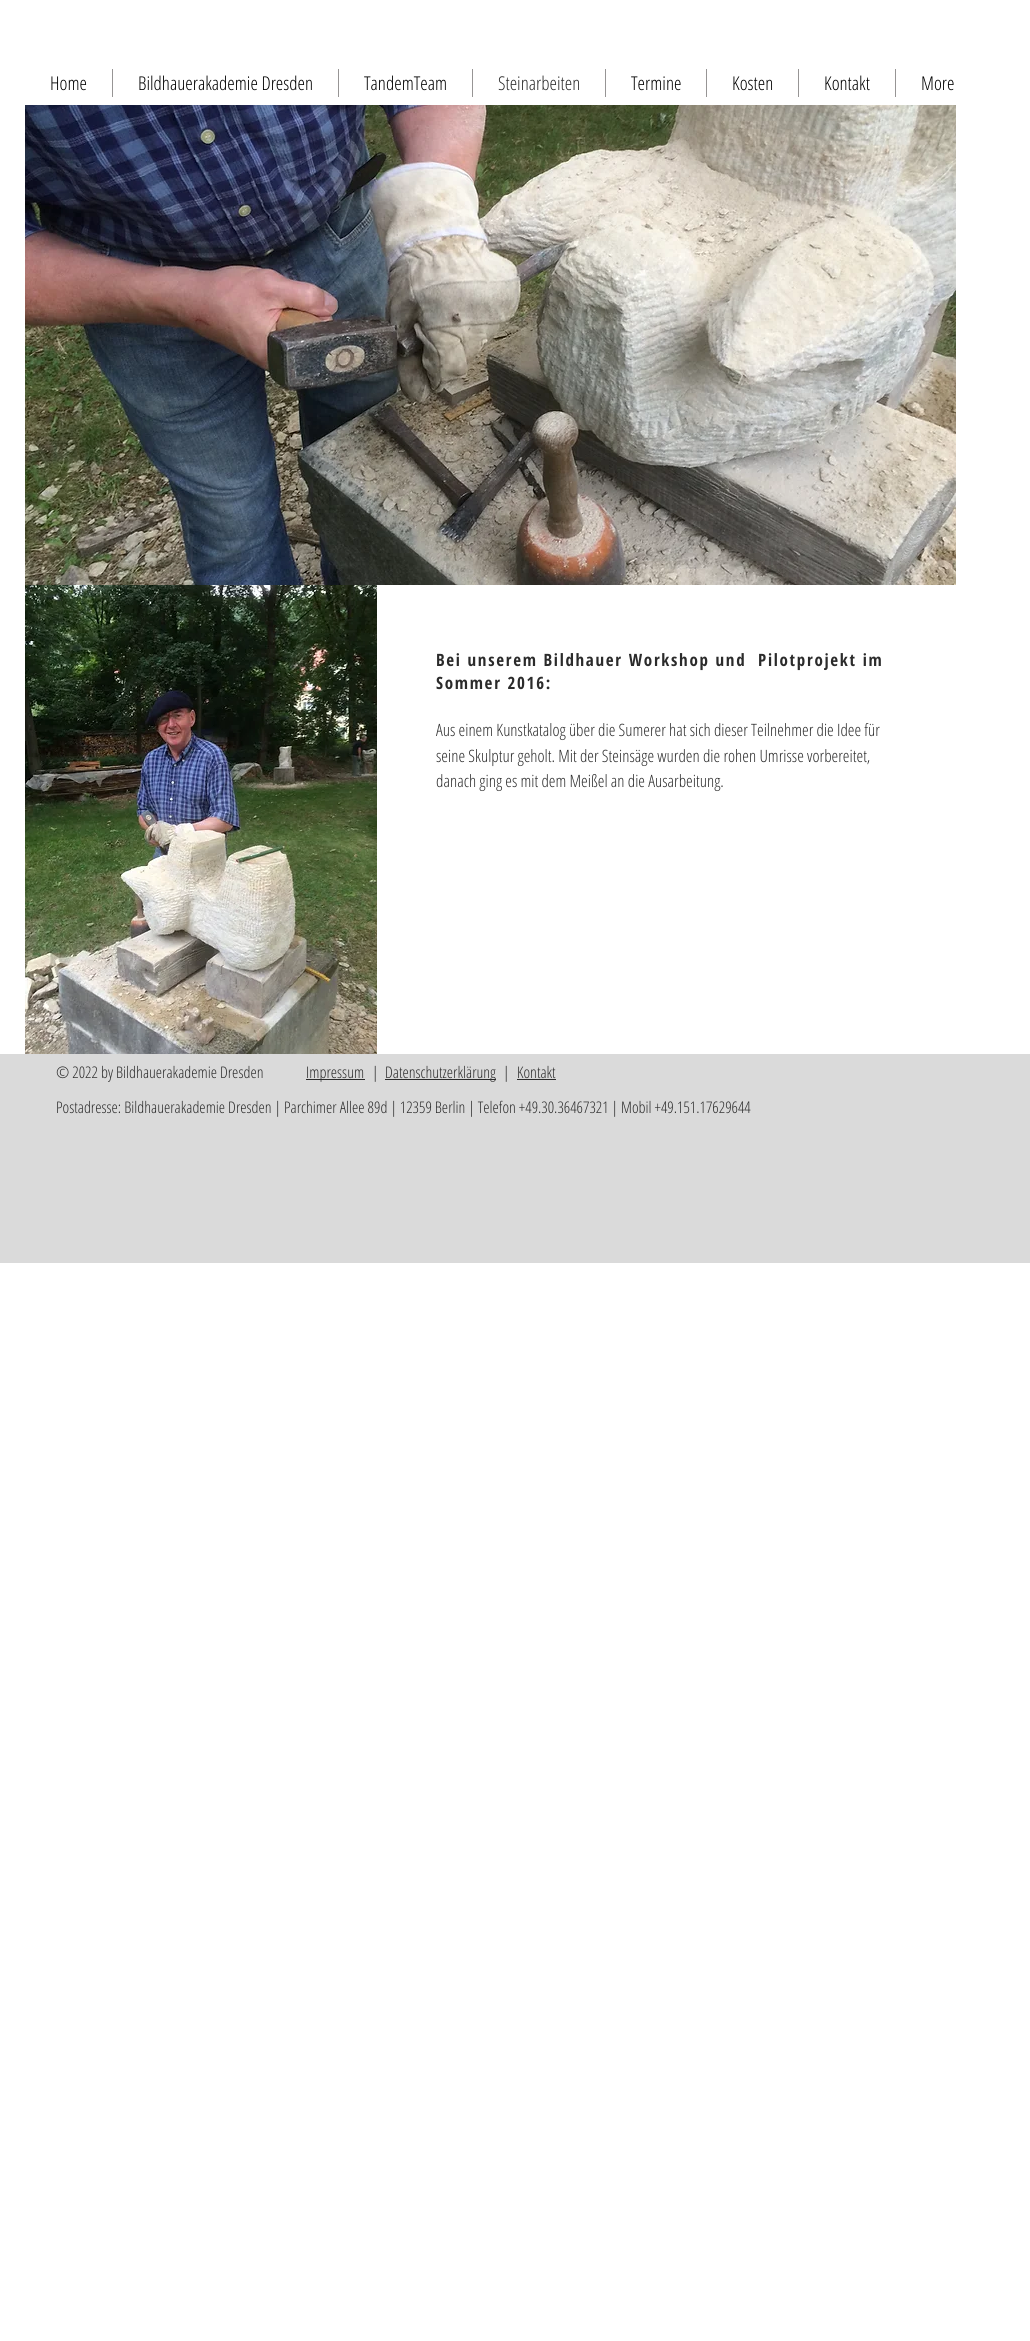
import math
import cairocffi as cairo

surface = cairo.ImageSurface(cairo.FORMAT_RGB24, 1030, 2341)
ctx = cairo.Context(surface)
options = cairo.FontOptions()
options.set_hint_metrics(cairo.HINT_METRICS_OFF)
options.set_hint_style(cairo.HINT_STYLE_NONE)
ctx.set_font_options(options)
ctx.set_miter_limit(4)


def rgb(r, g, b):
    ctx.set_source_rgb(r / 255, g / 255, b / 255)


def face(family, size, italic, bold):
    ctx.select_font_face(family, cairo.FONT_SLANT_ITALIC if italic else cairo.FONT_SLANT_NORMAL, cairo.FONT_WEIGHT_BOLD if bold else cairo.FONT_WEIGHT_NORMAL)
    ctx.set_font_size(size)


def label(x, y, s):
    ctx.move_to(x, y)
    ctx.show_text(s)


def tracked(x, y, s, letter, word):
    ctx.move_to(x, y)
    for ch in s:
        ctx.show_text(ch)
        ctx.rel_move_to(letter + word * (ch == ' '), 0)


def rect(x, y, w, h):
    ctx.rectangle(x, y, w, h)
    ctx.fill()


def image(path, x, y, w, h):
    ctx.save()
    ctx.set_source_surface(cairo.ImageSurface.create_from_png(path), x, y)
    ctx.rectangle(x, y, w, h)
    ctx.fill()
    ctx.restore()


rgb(255, 255, 255)
ctx.paint()
face('Open Sans Condensed Light', 19, 0, 0)
rgb(0, 0, 0)
label(50, 90, 'Home')
rgb(151, 149, 149)
rect(112, 69, 1, 28)
rgb(0, 0, 0)
label(138, 90, 'Bildhauerakademie Dresden')
rgb(151, 149, 149)
rect(338, 69, 1, 28)
rgb(0, 0, 0)
label(364, 90, 'TandemTeam')
rgb(151, 149, 149)
rect(472, 69, 1, 28)
rgb(43, 43, 43)
label(498, 90, 'Steinarbeiten')
rgb(151, 149, 149)
rect(605, 69, 1, 28)
rgb(0, 0, 0)
label(631, 90, 'Termine')
rgb(151, 149, 149)
rect(706, 69, 1, 28)
rgb(0, 0, 0)
label(732, 90, 'Kosten')
rgb(151, 149, 149)
rect(798, 69, 1, 28)
rgb(0, 0, 0)
label(824, 90, 'Kontakt')
rgb(151, 149, 149)
rect(895, 69, 1, 28)
rgb(0, 0, 0)
label(921, 90, 'More')
image('image0.png', 25, 105, 931, 480)
image('image1.png', 25, 585, 352, 469)
face('Open Sans Condensed', 17, 0, 1)
rgb(43, 43, 43)
tracked(436, 666, 'Bei unserem Bildhauer Workshop und  Pilotprojekt im', 1.7, 0)
tracked(436, 689, 'Sommer 2016:', 1.7, 0)
face('Open Sans Condensed Light', 17, 0, 0)
label(436, 736, 'Aus einem Kunstkatalog über die Sumerer hat sich dieser Teilnehmer die Idee für')
label(436, 762, 'seine Skulptur geholt. Mit der Steinsäge wurden die rohen Umrisse vorbereitet,')
label(436, 787, 'danach ging es mit dem Meißel an die Ausarbeitung.')
rgb(218, 218, 218)
rect(0, 1054, 1030, 209)
face('Open Sans Condensed Light', 16, 0, 0)
rgb(43, 43, 43)
label(56, 1078, '© 2022 by Bildhauerakademie Dresden')
rect(306, 1079, 59, 1)
label(306, 1078, 'Impressum')
label(372, 1078, '|')
rect(385, 1079, 111, 1)
label(385, 1078, 'Datenschutzerklärung')
label(503, 1078, '|')
label(517, 1078, 'Kontakt')
rect(517, 1079, 39, 1)
label(56, 1113, 'Postadresse: Bildhauerakademie Dresden | Parchimer Allee 89d | 12359 Berlin | Telefon +49.30.36467321 | Mobil +49.151.17629644')
surface.write_to_png('render.png')
